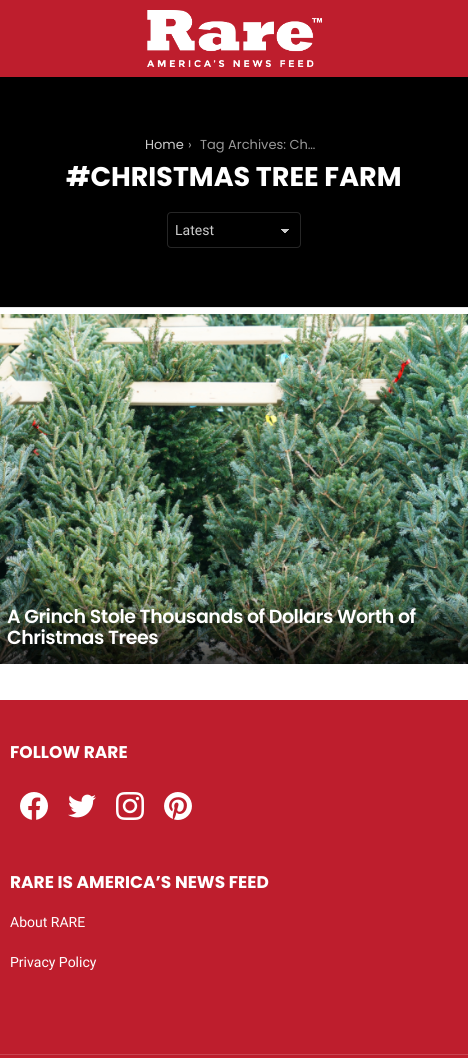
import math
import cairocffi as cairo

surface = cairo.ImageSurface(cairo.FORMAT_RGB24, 468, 1058)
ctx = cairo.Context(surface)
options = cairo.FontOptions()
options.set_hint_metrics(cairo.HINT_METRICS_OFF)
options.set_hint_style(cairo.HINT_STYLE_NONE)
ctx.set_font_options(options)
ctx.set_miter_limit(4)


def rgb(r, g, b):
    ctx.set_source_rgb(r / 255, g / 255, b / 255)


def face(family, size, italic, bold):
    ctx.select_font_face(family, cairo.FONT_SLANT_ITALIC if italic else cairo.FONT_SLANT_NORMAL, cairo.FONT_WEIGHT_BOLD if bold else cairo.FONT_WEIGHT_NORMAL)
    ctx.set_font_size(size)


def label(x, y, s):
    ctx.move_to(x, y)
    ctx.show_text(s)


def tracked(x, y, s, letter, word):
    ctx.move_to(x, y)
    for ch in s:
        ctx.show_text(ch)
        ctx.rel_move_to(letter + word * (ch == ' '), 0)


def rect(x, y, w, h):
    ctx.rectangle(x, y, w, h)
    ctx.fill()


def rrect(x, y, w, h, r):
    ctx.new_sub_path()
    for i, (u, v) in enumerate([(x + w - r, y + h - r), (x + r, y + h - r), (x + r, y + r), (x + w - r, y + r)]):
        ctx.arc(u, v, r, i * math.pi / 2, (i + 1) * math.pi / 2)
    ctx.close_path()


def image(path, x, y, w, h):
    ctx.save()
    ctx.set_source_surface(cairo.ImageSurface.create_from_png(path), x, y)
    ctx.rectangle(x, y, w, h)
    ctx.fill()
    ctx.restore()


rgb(255, 255, 255)
ctx.paint()
rgb(190, 30, 45)
rect(0, 0, 468, 77)
image('image0.png', 147, 10, 175, 57)
rgb(0, 0, 0)
rect(0, 77, 468, 230)
rgb(230, 230, 230)
rect(0, 307, 468, 1)
face('Poppins', 13, 0, 0)
rgb(204, 204, 204)
label(145, 149, 'Home')
rgb(153, 153, 153)
label(188, 149, '›')
label(200, 149, 'Tag Archives: Ch…')
face('Poppins', 27, 0, 1)
rgb(255, 255, 255)
label(66, 186, '#CHRISTMAS TREE FARM')
gradient = cairo.LinearGradient(285, 229, 290, 233)
gradient.add_color_stop_rgba(0.5, 0.8, 0.8, 0.8, 1)
gradient.add_color_stop_rgba(0.5, 0, 0, 0, 1)
ctx.set_source(gradient)
rect(285, 229, 5, 4)
gradient = cairo.LinearGradient(280, 233, 285, 229)
gradient.add_color_stop_rgba(0.5, 0, 0, 0, 1)
gradient.add_color_stop_rgba(0.5, 0.8, 0.8, 0.8, 1)
ctx.set_source(gradient)
rect(280, 229, 5, 4)
rrect(167.5, 212.5, 133, 35, 3.5)
rgb(38, 38, 38)
ctx.set_line_width(1)
ctx.stroke()
face('Roboto', 14, 0, 0)
rgb(204, 204, 204)
label(175, 235, 'Latest')
image('image1.png', 0, 314, 468, 350)
face('Poppins SemiBold', 19, 0, 0)
rgb(255, 255, 255)
tracked(7, 623, 'A Grinch Stole Thousands of Dollars Worth of', -0.45, 0)
tracked(7, 644, 'Christmas Trees', -0.45, 0)
rgb(190, 30, 45)
rect(0, 700, 468, 354)
face('Poppins', 17, 0, 1)
rgb(255, 255, 255)
label(10, 758, 'FOLLOW RARE')
image('image2.png', 20, 792, 28, 28)
image('image3.png', 68, 794, 28, 24)
image('image4.png', 116, 792, 28, 28)
image('image5.png', 164, 792, 28, 28)
label(10, 888, 'RARE IS AMERICA’S NEWS FEED')
face('Roboto', 14, 0, 0)
label(10, 927, 'About RARE')
label(10, 967, 'Privacy Policy')
rgb(201, 68, 80)
rect(0, 1054, 468, 1)
rgb(190, 30, 45)
rect(0, 1055, 468, 3)
surface.write_to_png('render.png')
